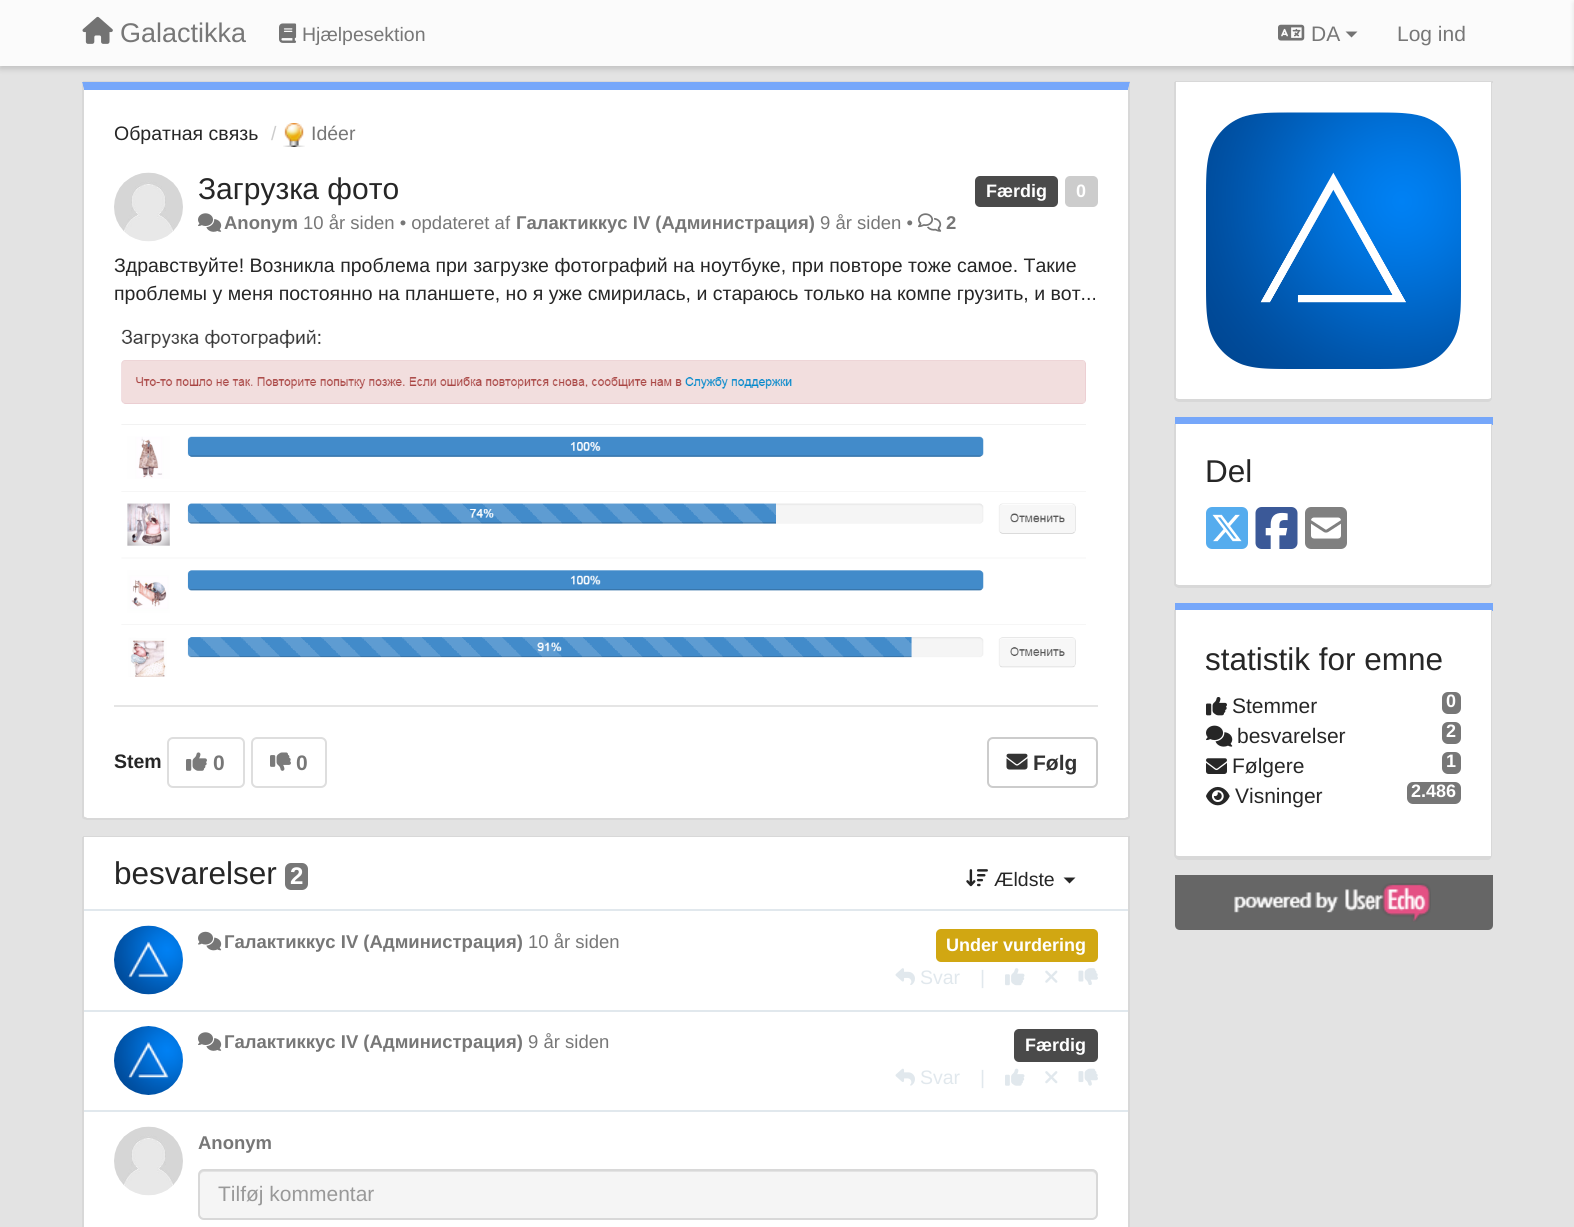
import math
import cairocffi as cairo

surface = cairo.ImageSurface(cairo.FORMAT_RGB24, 1574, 1227)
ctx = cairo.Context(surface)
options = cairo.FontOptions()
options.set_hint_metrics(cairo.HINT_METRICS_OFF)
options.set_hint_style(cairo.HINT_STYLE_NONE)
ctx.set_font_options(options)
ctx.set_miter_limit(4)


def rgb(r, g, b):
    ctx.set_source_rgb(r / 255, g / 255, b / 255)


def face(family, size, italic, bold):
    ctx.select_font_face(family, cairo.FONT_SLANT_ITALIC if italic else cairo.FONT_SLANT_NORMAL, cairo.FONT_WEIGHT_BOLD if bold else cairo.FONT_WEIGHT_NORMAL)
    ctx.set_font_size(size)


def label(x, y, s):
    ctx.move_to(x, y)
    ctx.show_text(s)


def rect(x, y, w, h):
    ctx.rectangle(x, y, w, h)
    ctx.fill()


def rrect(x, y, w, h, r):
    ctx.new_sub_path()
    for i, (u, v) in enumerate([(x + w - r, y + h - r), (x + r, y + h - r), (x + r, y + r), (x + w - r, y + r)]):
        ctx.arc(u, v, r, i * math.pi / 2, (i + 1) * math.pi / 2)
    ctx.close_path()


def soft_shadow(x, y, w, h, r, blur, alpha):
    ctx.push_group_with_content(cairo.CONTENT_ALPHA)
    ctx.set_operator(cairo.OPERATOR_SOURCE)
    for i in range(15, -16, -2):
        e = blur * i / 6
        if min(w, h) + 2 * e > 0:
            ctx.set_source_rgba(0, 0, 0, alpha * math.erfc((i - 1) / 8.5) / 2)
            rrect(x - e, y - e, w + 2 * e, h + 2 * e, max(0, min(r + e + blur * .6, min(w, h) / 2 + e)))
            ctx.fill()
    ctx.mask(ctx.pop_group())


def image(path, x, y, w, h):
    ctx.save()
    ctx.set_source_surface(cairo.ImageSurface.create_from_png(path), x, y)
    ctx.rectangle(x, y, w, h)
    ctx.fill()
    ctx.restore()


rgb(227, 227, 227)
ctx.paint()
rgb(0, 0, 0)
soft_shadow(0, 3, 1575, 66, 0, 3, 0.15)
rgb(251, 251, 251)
rect(0, 0, 1574, 66)
image('image0.png', 82, 16, 31, 28)
face('Liberation Sans', 27, 0, 0)
rgb(119, 119, 119)
label(120, 42, 'Galactikka')
image('image1.png', 279, 23, 18, 20)
face('Liberation Sans', 19.5, 0, 0)
label(302, 41, 'Hjælpesektion')
image('image2.png', 1278, 24, 27, 17)
face('Liberation Sans', 21, 0, 0)
label(1311, 41, 'DA')
rgb(115, 115, 115)
ctx.new_path()
ctx.move_to(1345.5, 31.5)
ctx.line_to(1357.5, 31.5)
ctx.line_to(1351.5, 37.5)
ctx.close_path()
ctx.fill()
rgb(119, 119, 119)
label(1397, 41, 'Log ind')
rgb(0, 0, 0)
soft_shadow(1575, 3, 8, 66, 0, 3, 0.15)
rgb(216, 216, 216)
rect(83, 81, 1047, 2)
rgb(255, 255, 255)
ctx.new_path()
ctx.move_to(84, 90)
ctx.line_to(1128, 90)
ctx.line_to(1128, 817)
ctx.line_to(1125, 818)
ctx.line_to(87, 818)
ctx.curve_to(86, 817, 84, 817, 84, 816)
ctx.close_path()
ctx.fill()
rgb(118, 167, 250)
ctx.new_path()
ctx.move_to(84, 90)
ctx.line_to(1128, 90)
ctx.line_to(1130, 82)
ctx.line_to(82, 82)
ctx.close_path()
ctx.fill()
rgb(216, 216, 216)
ctx.new_path()
ctx.move_to(1130, 82)
ctx.line_to(1130, 817)
ctx.line_to(1129, 819)
ctx.line_to(1128, 817)
ctx.line_to(1128, 90)
ctx.close_path()
ctx.fill()
ctx.new_path()
ctx.move_to(1129, 819)
ctx.line_to(1125, 820)
ctx.line_to(87, 820)
ctx.line_to(83, 819)
ctx.line_to(84, 817)
ctx.line_to(87, 818)
ctx.line_to(1125, 818)
ctx.line_to(1128, 817)
ctx.close_path()
ctx.fill()
ctx.new_path()
ctx.move_to(84, 90)
ctx.line_to(84, 816)
ctx.line_to(84, 817)
ctx.line_to(83, 819)
ctx.line_to(82, 817)
ctx.line_to(82, 82)
ctx.close_path()
ctx.fill()
face('Liberation Sans', 19.5, 0, 0)
rgb(38, 38, 38)
label(114, 140, 'Обратная связь')
rgb(204, 204, 204)
label(271, 140, '/')
image('image3.png', 283, 123, 22, 24)
rgb(119, 119, 119)
label(311, 140, 'Idéer')
image('image4.png', 114, 172, 69, 70)
face('Liberation Sans', 30, 0, 0)
rgb(38, 38, 38)
label(198, 199, 'Загрузка фото')
rgb(74, 74, 74)
rrect(975, 176, 83, 31, 5)
ctx.fill()
face('Liberation Sans', 18, 0, 1)
rgb(255, 255, 255)
label(986, 197, 'Færdig')
rgb(204, 204, 204)
rrect(1065, 176, 33, 31, 5)
ctx.fill()
rgb(255, 255, 255)
label(1076, 197, '0')
image('image5.png', 198, 213, 24, 19)
face('Liberation Sans', 18.5, 0, 1)
rgb(119, 119, 119)
label(224, 229, 'Anonym')
face('Liberation Sans', 18.5, 0, 0)
label(303, 229, '10 år siden • opdateret af')
face('Liberation Sans', 18.5, 0, 1)
label(516, 229, 'Галактиккус IV (Администрация)')
face('Liberation Sans', 18.5, 0, 0)
label(820, 229, '9 år siden •')
image('image6.png', 918, 213, 24, 19)
face('Liberation Sans', 18.5, 0, 1)
label(946, 229, '2')
face('Liberation Sans', 19.5, 0, 0)
rgb(38, 38, 38)
label(114, 272, 'Здравствуйте! Возникла проблема при загрузке фотографий на ноутбуке, при повторе тоже самое. Такие')
label(114, 300, 'проблемы у меня постоянно на планшете, но я уже смирилась, и стараюсь только на компе грузить, и вот...')
image('image7.png', 121, 329, 965, 348)
rgb(229, 229, 229)
rect(114, 705, 984, 2)
face('Liberation Sans', 19.5, 0, 1)
rgb(38, 38, 38)
label(114, 768, 'Stem')
rrect(168, 738, 76, 49, 5)
rgb(222, 222, 222)
ctx.stroke()
image('image8.png', 186, 752, 21, 19)
face('Liberation Sans', 21, 0, 1)
rgb(119, 119, 119)
label(213, 770, '0')
rrect(252, 738, 74, 49, 5)
rgb(222, 222, 222)
ctx.stroke()
image('image9.png', 270, 752, 21, 19)
rgb(119, 119, 119)
label(296, 770, '0')
rrect(988, 738, 109, 49, 5)
rgb(204, 204, 204)
ctx.stroke()
image('image10.png', 1006, 753, 22, 17)
rgb(51, 51, 51)
label(1033, 770, 'Følg')
rgb(216, 216, 216)
rect(83, 836, 1047, 1)
rgb(255, 255, 255)
rect(84, 837, 1044, 390)
rgb(216, 216, 216)
ctx.set_fill_rule(cairo.FILL_RULE_EVEN_ODD)
ctx.new_path()
ctx.move_to(82, 837)
ctx.line_to(1130, 837)
ctx.line_to(1130, 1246)
ctx.curve_to(1130, 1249, 1127, 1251, 1125, 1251)
ctx.line_to(87, 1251)
ctx.curve_to(85, 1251, 82, 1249, 82, 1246)
ctx.close_path()
ctx.move_to(84, 837)
ctx.line_to(1128, 837)
ctx.line_to(1128, 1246)
ctx.curve_to(1128, 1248, 1127, 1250, 1125, 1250)
ctx.line_to(87, 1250)
ctx.curve_to(85, 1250, 84, 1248, 84, 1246)
ctx.close_path()
ctx.fill()
face('Liberation Sans', 31.5, 0, 0)
rgb(38, 38, 38)
label(114, 884, 'besvarelser')
rgb(119, 119, 119)
rrect(285, 863, 23, 27, 6)
ctx.fill()
face('Liberation Sans', 24, 0, 1)
rgb(255, 255, 255)
label(290, 884, '2')
image('image11.png', 966, 869, 22, 18)
face('Liberation Sans', 19.5, 0, 0)
rgb(38, 38, 38)
label(994, 886, 'Ældste')
ctx.set_fill_rule(cairo.FILL_RULE_WINDING)
ctx.new_path()
ctx.move_to(1063.5, 877.5)
ctx.line_to(1075.5, 877.5)
ctx.line_to(1069.5, 883.5)
ctx.close_path()
ctx.fill()
rgb(225, 232, 237)
rect(84, 909, 1044, 2)
rect(84, 1010, 1044, 2)
image('image12.png', 114, 925, 69, 70)
image('image13.png', 198, 931, 24, 20)
face('Liberation Sans', 18.5, 0, 1)
rgb(119, 119, 119)
label(224, 948, 'Галактиккус IV (Администрация)')
face('Liberation Sans', 18.5, 0, 0)
label(528, 948, '10 år siden')
rgb(209, 167, 18)
rrect(936, 929, 162, 33, 5)
ctx.fill()
face('Liberation Sans', 18, 0, 1)
rgb(255, 255, 255)
label(946, 951, 'Under vurdering')
image('image14.png', 895, 968, 20, 17)
face('Liberation Sans', 19.5, 0, 0)
rgb(225, 232, 237)
label(920, 984, 'Svar')
label(980, 984, '|')
image('image15.png', 1005, 968, 20, 18)
image('image16.png', 1045, 970, 13, 13)
image('image17.png', 1078, 968, 20, 17)
rect(84, 1110, 1044, 2)
image('image18.png', 114, 1026, 69, 69)
image('image5.png', 198, 1032, 24, 19)
face('Liberation Sans', 18.5, 0, 1)
rgb(119, 119, 119)
label(224, 1048, 'Галактиккус IV (Администрация)')
face('Liberation Sans', 18.5, 0, 0)
label(528, 1048, '9 år siden')
rgb(74, 74, 74)
rrect(1014, 1029, 84, 33, 5)
ctx.fill()
face('Liberation Sans', 18, 0, 1)
rgb(255, 255, 255)
label(1025, 1051, 'Færdig')
image('image19.png', 895, 1068, 20, 18)
face('Liberation Sans', 19.5, 0, 0)
rgb(225, 232, 237)
label(920, 1084, 'Svar')
label(980, 1084, '|')
image('image20.png', 1005, 1068, 20, 18)
image('image21.png', 1045, 1071, 13, 13)
image('image22.png', 1078, 1068, 20, 18)
image('image4.png', 114, 1126, 69, 70)
face('Liberation Sans', 18.5, 0, 1)
rgb(119, 119, 119)
label(198, 1149, 'Anonym')
rgb(245, 245, 245)
rrect(198, 1169, 900, 51, 6)
ctx.fill()
rgb(227, 227, 227)
ctx.new_path()
ctx.move_to(204, 1172)
ctx.line_to(1092, 1172)
ctx.curve_to(1094, 1172, 1096, 1174, 1096, 1176)
ctx.line_to(1096, 1216)
ctx.curve_to(1097, 1215, 1097, 1214, 1097, 1213)
ctx.line_to(1097, 1175)
ctx.curve_to(1097, 1172, 1095, 1170, 1092, 1170)
ctx.line_to(205, 1170)
ctx.curve_to(202, 1170, 200, 1172, 200, 1175)
ctx.line_to(200, 1176)
ctx.curve_to(200, 1174, 202, 1172, 204, 1172)
ctx.close_path()
ctx.fill()
rrect(199, 1170, 898, 49, 5)
rgb(216, 216, 216)
ctx.stroke()
face('Liberation Sans', 21, 0, 0)
rgb(153, 153, 153)
label(218, 1201, 'Tilføj kommentar')
rgb(216, 216, 216)
rect(1175, 81, 318, 2)
rgb(255, 255, 255)
ctx.new_path()
ctx.move_to(1176, 82)
ctx.line_to(1491, 82)
ctx.line_to(1491, 398)
ctx.curve_to(1491, 398, 1490, 399, 1488, 399)
ctx.line_to(1179, 399)
ctx.curve_to(1177, 399, 1176, 398, 1176, 398)
ctx.close_path()
ctx.fill()
rgb(216, 216, 216)
ctx.set_fill_rule(cairo.FILL_RULE_EVEN_ODD)
ctx.new_path()
ctx.move_to(1174, 82)
ctx.line_to(1492, 82)
ctx.line_to(1492, 398)
ctx.curve_to(1492, 400, 1490, 402, 1488, 402)
ctx.line_to(1179, 402)
ctx.curve_to(1177, 402, 1174, 400, 1174, 398)
ctx.close_path()
ctx.move_to(1176, 82)
ctx.line_to(1491, 82)
ctx.line_to(1491, 398)
ctx.curve_to(1491, 398, 1490, 399, 1488, 399)
ctx.line_to(1179, 399)
ctx.curve_to(1177, 399, 1176, 398, 1176, 398)
ctx.close_path()
ctx.fill()
image('image23.png', 1206, 112, 255, 257)
rgb(118, 167, 250)
rect(1175, 417, 318, 8)
rgb(255, 255, 255)
ctx.set_fill_rule(cairo.FILL_RULE_WINDING)
ctx.new_path()
ctx.move_to(1176, 424)
ctx.line_to(1491, 424)
ctx.line_to(1491, 584)
ctx.curve_to(1491, 584, 1490, 585, 1488, 585)
ctx.line_to(1179, 585)
ctx.curve_to(1177, 585, 1176, 584, 1176, 584)
ctx.close_path()
ctx.fill()
rgb(216, 216, 216)
ctx.set_fill_rule(cairo.FILL_RULE_EVEN_ODD)
ctx.new_path()
ctx.move_to(1174, 424)
ctx.line_to(1492, 424)
ctx.line_to(1492, 584)
ctx.curve_to(1492, 586, 1490, 588, 1488, 588)
ctx.line_to(1179, 588)
ctx.curve_to(1177, 588, 1174, 586, 1174, 584)
ctx.close_path()
ctx.move_to(1176, 424)
ctx.line_to(1491, 424)
ctx.line_to(1491, 584)
ctx.curve_to(1491, 584, 1490, 585, 1488, 585)
ctx.line_to(1179, 585)
ctx.curve_to(1177, 585, 1176, 584, 1176, 584)
ctx.close_path()
ctx.fill()
face('Liberation Sans', 31.5, 0, 0)
rgb(38, 38, 38)
label(1205, 482, 'Del')
image('image24.png', 1206, 507, 42, 42)
image('image25.png', 1255, 507, 43, 42)
image('image26.png', 1305, 507, 42, 42)
rgb(118, 167, 250)
rect(1175, 603, 318, 8)
rgb(255, 255, 255)
ctx.set_fill_rule(cairo.FILL_RULE_WINDING)
ctx.new_path()
ctx.move_to(1176, 610)
ctx.line_to(1491, 610)
ctx.line_to(1491, 856)
ctx.line_to(1488, 856)
ctx.line_to(1179, 856)
ctx.curve_to(1178, 856, 1176, 856, 1176, 855)
ctx.close_path()
ctx.fill()
rgb(216, 216, 216)
ctx.set_fill_rule(cairo.FILL_RULE_EVEN_ODD)
ctx.new_path()
ctx.move_to(1174, 610)
ctx.line_to(1492, 610)
ctx.line_to(1492, 855)
ctx.curve_to(1492, 857, 1490, 860, 1488, 860)
ctx.line_to(1179, 860)
ctx.curve_to(1177, 860, 1174, 857, 1174, 855)
ctx.close_path()
ctx.move_to(1176, 610)
ctx.line_to(1491, 610)
ctx.line_to(1491, 856)
ctx.line_to(1488, 856)
ctx.line_to(1179, 856)
ctx.curve_to(1178, 856, 1176, 856, 1176, 855)
ctx.close_path()
ctx.fill()
rgb(38, 38, 38)
label(1205, 670, 'statistik for emne')
image('image27.png', 1206, 697, 21, 19)
face('Liberation Sans', 21, 0, 0)
label(1232, 713, 'Stemmer')
rgb(119, 119, 119)
rrect(1442, 692, 19, 22, 6)
ctx.fill()
face('Liberation Sans', 18, 0, 1)
rgb(255, 255, 255)
label(1446, 707, '0')
image('image28.png', 1206, 725, 27, 22)
face('Liberation Sans', 21, 0, 0)
rgb(38, 38, 38)
label(1237, 743, 'besvarelser')
rgb(119, 119, 119)
rrect(1442, 722, 19, 22, 6)
ctx.fill()
face('Liberation Sans', 18, 0, 1)
rgb(255, 255, 255)
label(1446, 737, '2')
image('image29.png', 1206, 758, 21, 16)
face('Liberation Sans', 21, 0, 0)
rgb(38, 38, 38)
label(1232, 773, 'Følgere')
rgb(119, 119, 119)
rrect(1442, 752, 19, 22, 6)
ctx.fill()
face('Liberation Sans', 18, 0, 1)
rgb(255, 255, 255)
label(1446, 767, '1')
image('image30.png', 1206, 786, 24, 20)
face('Liberation Sans', 21, 0, 0)
rgb(38, 38, 38)
label(1235, 803, 'Visninger')
rgb(119, 119, 119)
rrect(1407, 782, 54, 22, 6)
ctx.fill()
face('Liberation Sans', 18, 0, 1)
rgb(255, 255, 255)
label(1411, 797, '2.486')
rgb(102, 102, 102)
ctx.new_path()
ctx.move_to(1175, 875)
ctx.line_to(1493, 875)
ctx.line_to(1493, 925)
ctx.curve_to(1493, 928, 1491, 930, 1488, 930)
ctx.line_to(1180, 930)
ctx.curve_to(1177, 930, 1175, 928, 1175, 925)
ctx.close_path()
ctx.fill()
image('image31.png', 1234, 883, 197, 39)
surface.write_to_png('render.png')
